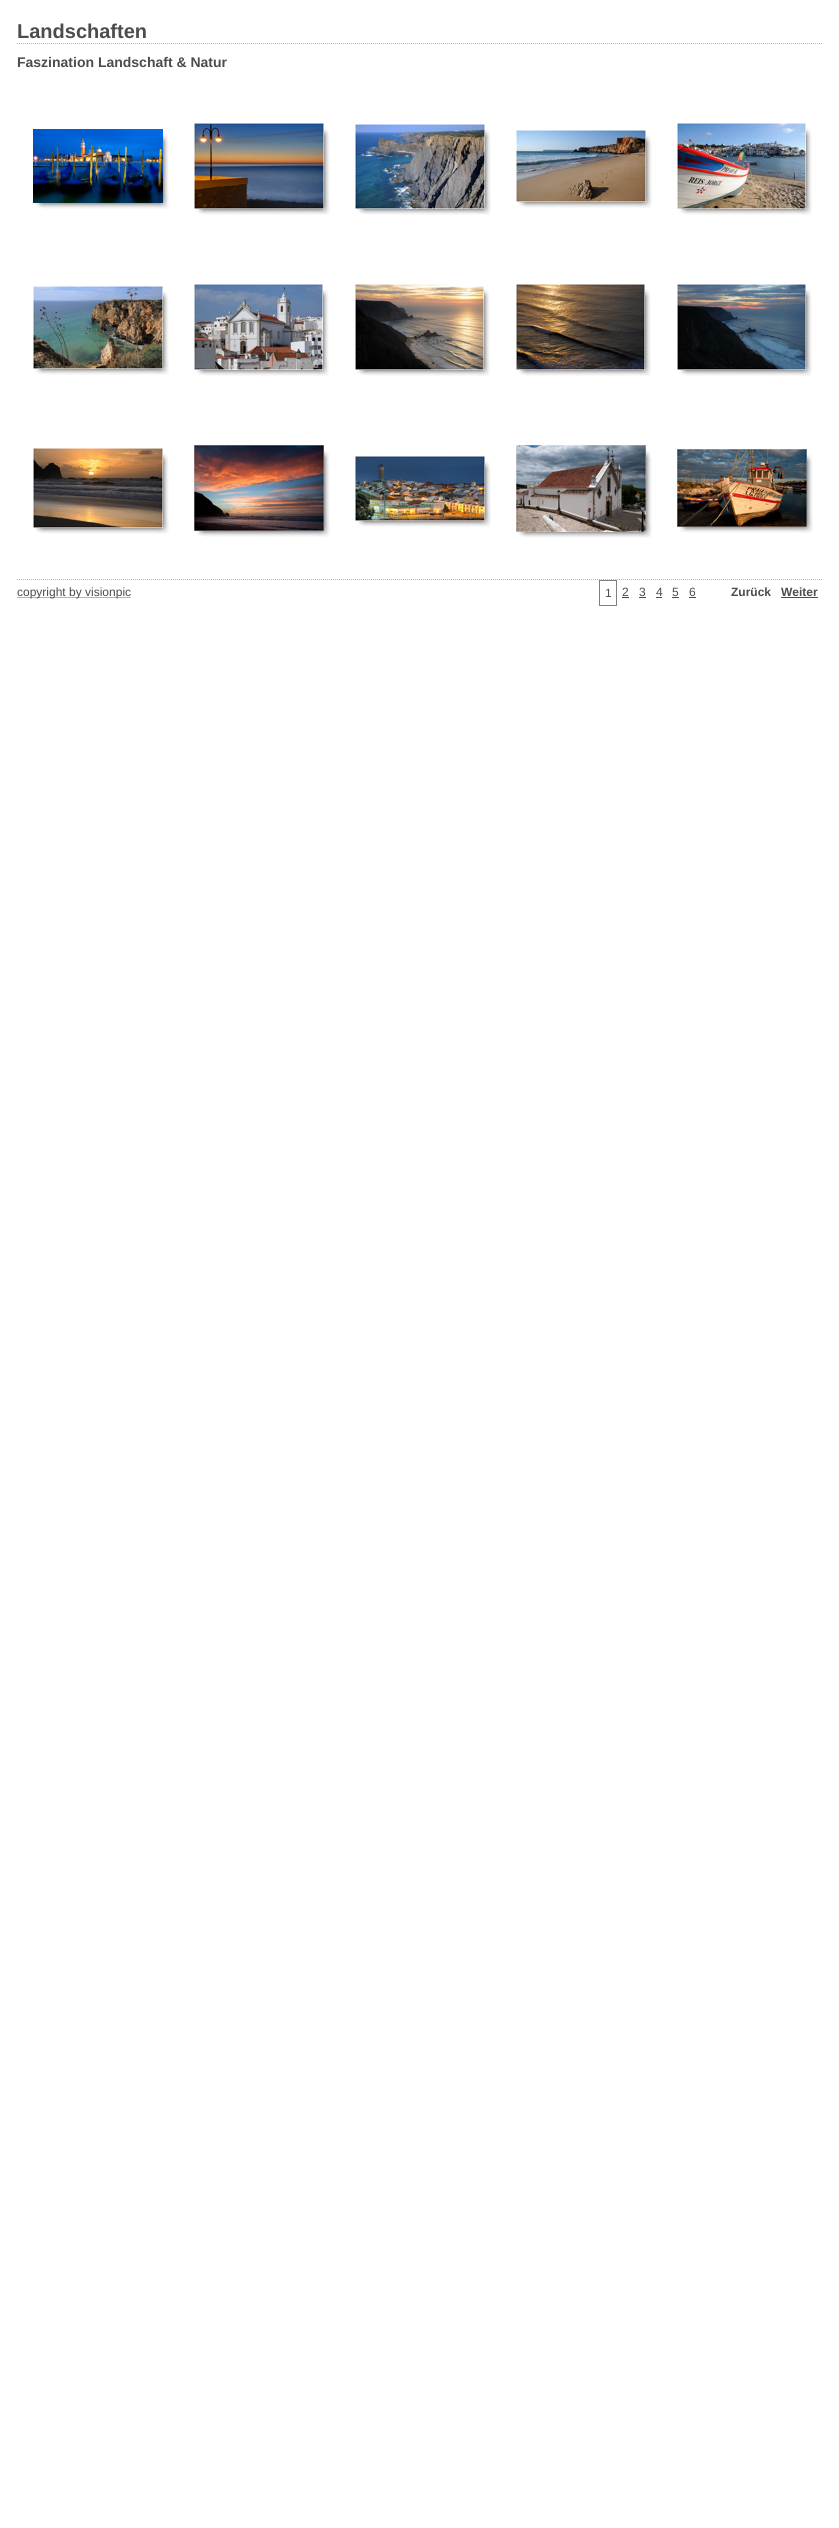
import math
import cairocffi as cairo

surface = cairo.ImageSurface(cairo.FORMAT_RGB24, 839, 2528)
ctx = cairo.Context(surface)
options = cairo.FontOptions()
options.set_hint_metrics(cairo.HINT_METRICS_OFF)
options.set_hint_style(cairo.HINT_STYLE_NONE)
ctx.set_font_options(options)
ctx.set_miter_limit(4)


def rgb(r, g, b):
    ctx.set_source_rgb(r / 255, g / 255, b / 255)


def face(family, size, italic, bold):
    ctx.select_font_face(family, cairo.FONT_SLANT_ITALIC if italic else cairo.FONT_SLANT_NORMAL, cairo.FONT_WEIGHT_BOLD if bold else cairo.FONT_WEIGHT_NORMAL)
    ctx.set_font_size(size)


def label(x, y, s):
    ctx.move_to(x, y)
    ctx.show_text(s)


def rect(x, y, w, h):
    ctx.rectangle(x, y, w, h)
    ctx.fill()


def image(path, x, y, w, h):
    ctx.save()
    ctx.set_source_surface(cairo.ImageSurface.create_from_png(path), x, y)
    ctx.rectangle(x, y, w, h)
    ctx.fill()
    ctx.restore()


rgb(255, 255, 255)
ctx.paint()
ctx.new_path()
ctx.move_to(17, 43.5)
ctx.line_to(823, 43.5)
rgb(179, 179, 179)
ctx.set_line_width(1)
ctx.set_dash([1, 1])
ctx.stroke()
face('Liberation Sans', 20, 0, 1)
rgb(76, 76, 76)
label(17, 38, 'Landschaften')
face('Liberation Sans', 14, 0, 1)
label(17, 67, 'Faszination Landschaft & Natur')
ctx.new_path()
ctx.move_to(17, 579.5)
ctx.line_to(823, 579.5)
rgb(179, 179, 179)
ctx.stroke()
image('image0.png', 43, 142, 126, 67)
image('image1.png', 33, 129, 130, 74)
image('image2.png', 163, 134, 5, 8)
image('image3.png', 35, 203, 8, 5)
image('image4.png', 204, 136, 126, 79)
image('image5.png', 194, 123, 130, 86)
image('image2.png', 324, 128, 5, 8)
image('image3.png', 196, 209, 8, 5)
image('image6.png', 365, 137, 126, 78)
image('image7.png', 355, 124, 130, 85)
image('image2.png', 485, 129, 5, 8)
image('image3.png', 357, 209, 8, 5)
image('image8.png', 526, 143, 126, 65)
image('image9.png', 516, 130, 130, 72)
image('image2.png', 646, 135, 5, 8)
image('image3.png', 518, 202, 8, 5)
image('image10.png', 687, 136, 125, 79)
image('image11.png', 677, 123, 129, 86)
image('image2.png', 806, 128, 5, 8)
image('image3.png', 679, 209, 8, 5)
image('image12.png', 43, 299, 126, 76)
image('image13.png', 33, 286, 130, 83)
image('image2.png', 163, 291, 5, 8)
image('image3.png', 35, 369, 8, 5)
image('image10.png', 204, 297, 125, 79)
image('image14.png', 194, 284, 129, 86)
image('image2.png', 323, 289, 5, 8)
image('image3.png', 196, 370, 8, 5)
image('image10.png', 365, 297, 125, 79)
image('image15.png', 355, 284, 129, 86)
image('image2.png', 484, 289, 5, 8)
image('image3.png', 357, 370, 8, 5)
image('image10.png', 526, 297, 125, 79)
image('image16.png', 516, 284, 129, 86)
image('image2.png', 645, 289, 5, 8)
image('image3.png', 518, 370, 8, 5)
image('image10.png', 687, 297, 125, 79)
image('image17.png', 677, 284, 129, 86)
image('image2.png', 806, 289, 5, 8)
image('image3.png', 679, 370, 8, 5)
image('image18.png', 43, 461, 126, 73)
image('image19.png', 33, 448, 130, 80)
image('image2.png', 163, 453, 5, 8)
image('image3.png', 35, 528, 8, 5)
image('image4.png', 204, 458, 126, 79)
image('image20.png', 194, 445, 130, 86)
image('image2.png', 324, 450, 5, 8)
image('image3.png', 196, 531, 8, 5)
image('image21.png', 365, 469, 126, 58)
image('image22.png', 355, 456, 130, 65)
image('image2.png', 485, 461, 5, 8)
image('image3.png', 357, 521, 8, 5)
image('image23.png', 526, 458, 126, 80)
image('image24.png', 516, 445, 130, 87)
image('image2.png', 646, 450, 5, 8)
image('image3.png', 518, 532, 8, 5)
image('image25.png', 687, 462, 126, 71)
image('image26.png', 677, 449, 130, 78)
image('image2.png', 807, 454, 5, 8)
image('image3.png', 679, 527, 8, 5)
rect(17, 597, 114, 1)
face('Liberation Sans', 12, 0, 0)
rgb(76, 76, 76)
label(17, 596, 'copyright by visionpic')
ctx.rectangle(599.5, 580.5, 17, 25)
rgb(127, 127, 127)
ctx.set_dash([])
ctx.stroke()
rgb(76, 76, 76)
label(605, 597, '1')
label(622, 596, '2')
rect(622, 597, 7, 1)
label(639, 596, '3')
rect(639, 597, 7, 1)
label(656, 596, '4')
rect(656, 597, 6, 1)
label(672, 596, '5')
rect(672, 597, 7, 1)
label(689, 596, '6')
rect(689, 597, 7, 1)
face('Liberation Sans', 12, 0, 1)
label(731, 596, 'Zurück')
label(781, 596, 'Weiter')
rect(781, 597, 37, 1)
surface.write_to_png('render.png')
